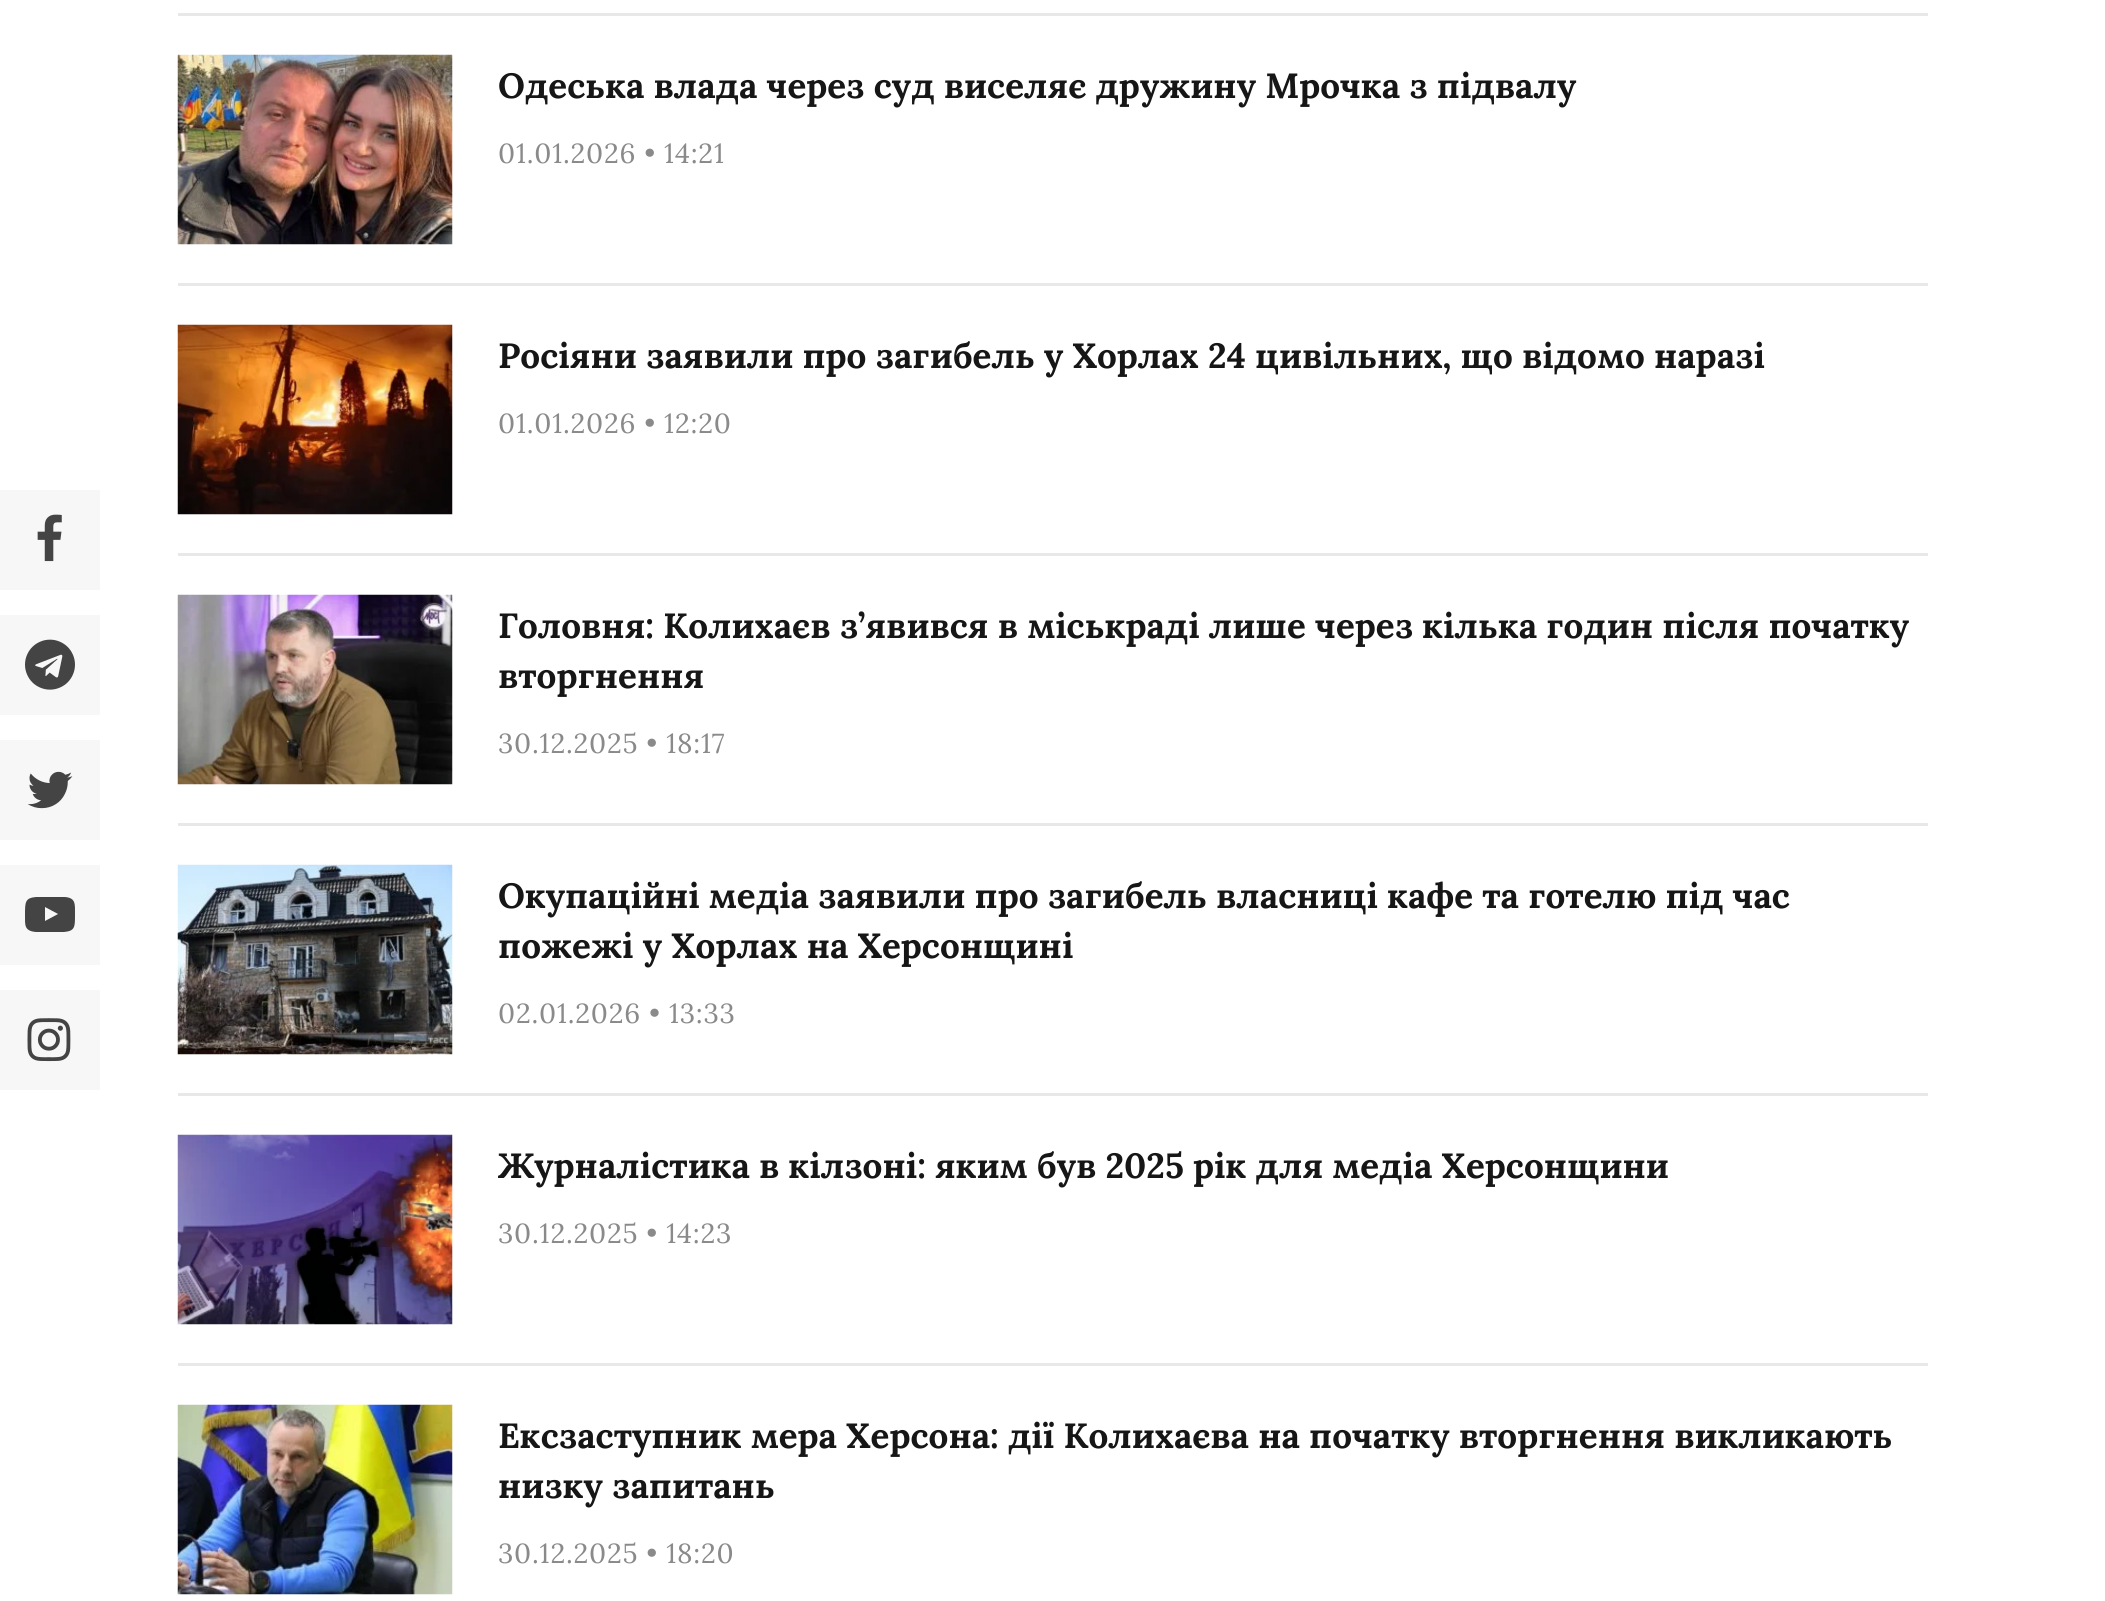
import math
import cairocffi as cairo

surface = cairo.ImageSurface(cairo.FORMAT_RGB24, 2105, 1601)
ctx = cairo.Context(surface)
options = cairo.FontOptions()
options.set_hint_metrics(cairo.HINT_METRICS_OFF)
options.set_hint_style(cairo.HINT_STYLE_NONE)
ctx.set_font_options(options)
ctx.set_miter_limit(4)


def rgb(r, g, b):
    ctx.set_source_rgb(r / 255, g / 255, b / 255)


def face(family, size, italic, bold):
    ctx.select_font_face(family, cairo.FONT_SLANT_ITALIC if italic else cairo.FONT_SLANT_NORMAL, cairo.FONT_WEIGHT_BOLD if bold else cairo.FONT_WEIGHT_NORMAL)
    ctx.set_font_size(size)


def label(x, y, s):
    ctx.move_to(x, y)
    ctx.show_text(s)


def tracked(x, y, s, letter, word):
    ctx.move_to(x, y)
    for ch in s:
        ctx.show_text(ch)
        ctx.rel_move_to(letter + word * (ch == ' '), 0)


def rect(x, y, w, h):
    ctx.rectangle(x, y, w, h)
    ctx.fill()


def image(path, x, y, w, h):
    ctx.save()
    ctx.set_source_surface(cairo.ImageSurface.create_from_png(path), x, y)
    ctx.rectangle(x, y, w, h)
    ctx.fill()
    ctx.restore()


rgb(255, 255, 255)
ctx.paint()
rgb(247, 247, 247)
rect(0, 490, 100, 100)
image('image0.png', 37, 514, 25, 48)
rect(0, 615, 100, 100)
image('image1.png', 25, 639, 50, 51)
rect(0, 740, 100, 100)
image('image2.png', 27, 771, 46, 38)
rect(0, 865, 100, 100)
rgb(68, 68, 68)
ctx.new_path()
ctx.move_to(45, 921)
ctx.line_to(58, 914)
ctx.line_to(45, 907)
ctx.close_path()
ctx.move_to(50, 897)
ctx.line_to(65, 897)
ctx.curve_to(76, 898, 75, 904, 75, 915)
ctx.curve_to(75, 927, 75, 931, 64, 932)
ctx.line_to(36, 932)
ctx.curve_to(24, 931, 25, 925, 25, 915)
ctx.curve_to(25, 902, 25, 898, 36, 897)
ctx.close_path()
ctx.fill()
rgb(247, 247, 247)
rect(0, 990, 100, 100)
image('image3.png', 27, 1018, 44, 44)
rgb(232, 232, 232)
rect(178, 13, 1750, 3)
image('image4.png', 177, 54, 276, 191)
face('Lora', 35, 0, 1)
rgb(22, 22, 22)
label(498, 98, 'Одеська влада через суд виселяє дружину Мрочка з підвалу')
face('Lora', 27.5, 0, 0)
rgb(138, 138, 138)
tracked(498, 163, '01.01.2026 • 14:21', 0.8, 0)
rgb(232, 232, 232)
rect(178, 283, 1750, 3)
image('image5.png', 177, 324, 276, 191)
face('Lora', 35, 0, 1)
rgb(22, 22, 22)
label(498, 368, 'Росіяни заявили про загибель у Хорлах 24 цивільних, що відомо наразі')
face('Lora', 27.5, 0, 0)
rgb(138, 138, 138)
tracked(498, 433, '01.01.2026 • 12:20', 0.8, 0)
rgb(232, 232, 232)
rect(178, 553, 1750, 3)
image('image6.png', 177, 594, 276, 191)
face('Lora', 35, 0, 1)
rgb(22, 22, 22)
label(498, 638, 'Головня: Колихаєв з’явився в міськраді лише через кілька годин після початку')
label(498, 688, 'вторгнення')
face('Lora', 27.5, 0, 0)
rgb(138, 138, 138)
tracked(498, 753, '30.12.2025 • 18:17', 0.8, 0)
rgb(232, 232, 232)
rect(178, 823, 1750, 3)
image('image7.png', 177, 864, 276, 191)
face('Lora', 35, 0, 1)
rgb(22, 22, 22)
label(498, 908, 'Окупаційні медіа заявили про загибель власниці кафе та готелю під час')
label(498, 958, 'пожежі у Хорлах на Херсонщині')
face('Lora', 27.5, 0, 0)
rgb(138, 138, 138)
tracked(498, 1023, '02.01.2026 • 13:33', 0.8, 0)
rgb(232, 232, 232)
rect(178, 1093, 1750, 3)
image('image8.png', 177, 1134, 276, 191)
face('Lora', 35, 0, 1)
rgb(22, 22, 22)
label(498, 1178, 'Журналістика в кілзоні: яким був 2025 рік для медіа Херсонщини')
face('Lora', 27.5, 0, 0)
rgb(138, 138, 138)
tracked(498, 1243, '30.12.2025 • 14:23', 0.8, 0)
rgb(232, 232, 232)
rect(178, 1363, 1750, 3)
image('image9.png', 177, 1404, 276, 191)
face('Lora', 35, 0, 1)
rgb(22, 22, 22)
label(498, 1448, 'Ексзаступник мера Херсона: дії Колихаєва на початку вторгнення викликають')
label(498, 1498, 'низку запитань')
face('Lora', 27.5, 0, 0)
rgb(138, 138, 138)
tracked(498, 1563, '30.12.2025 • 18:20', 0.8, 0)
surface.write_to_png('render.png')
